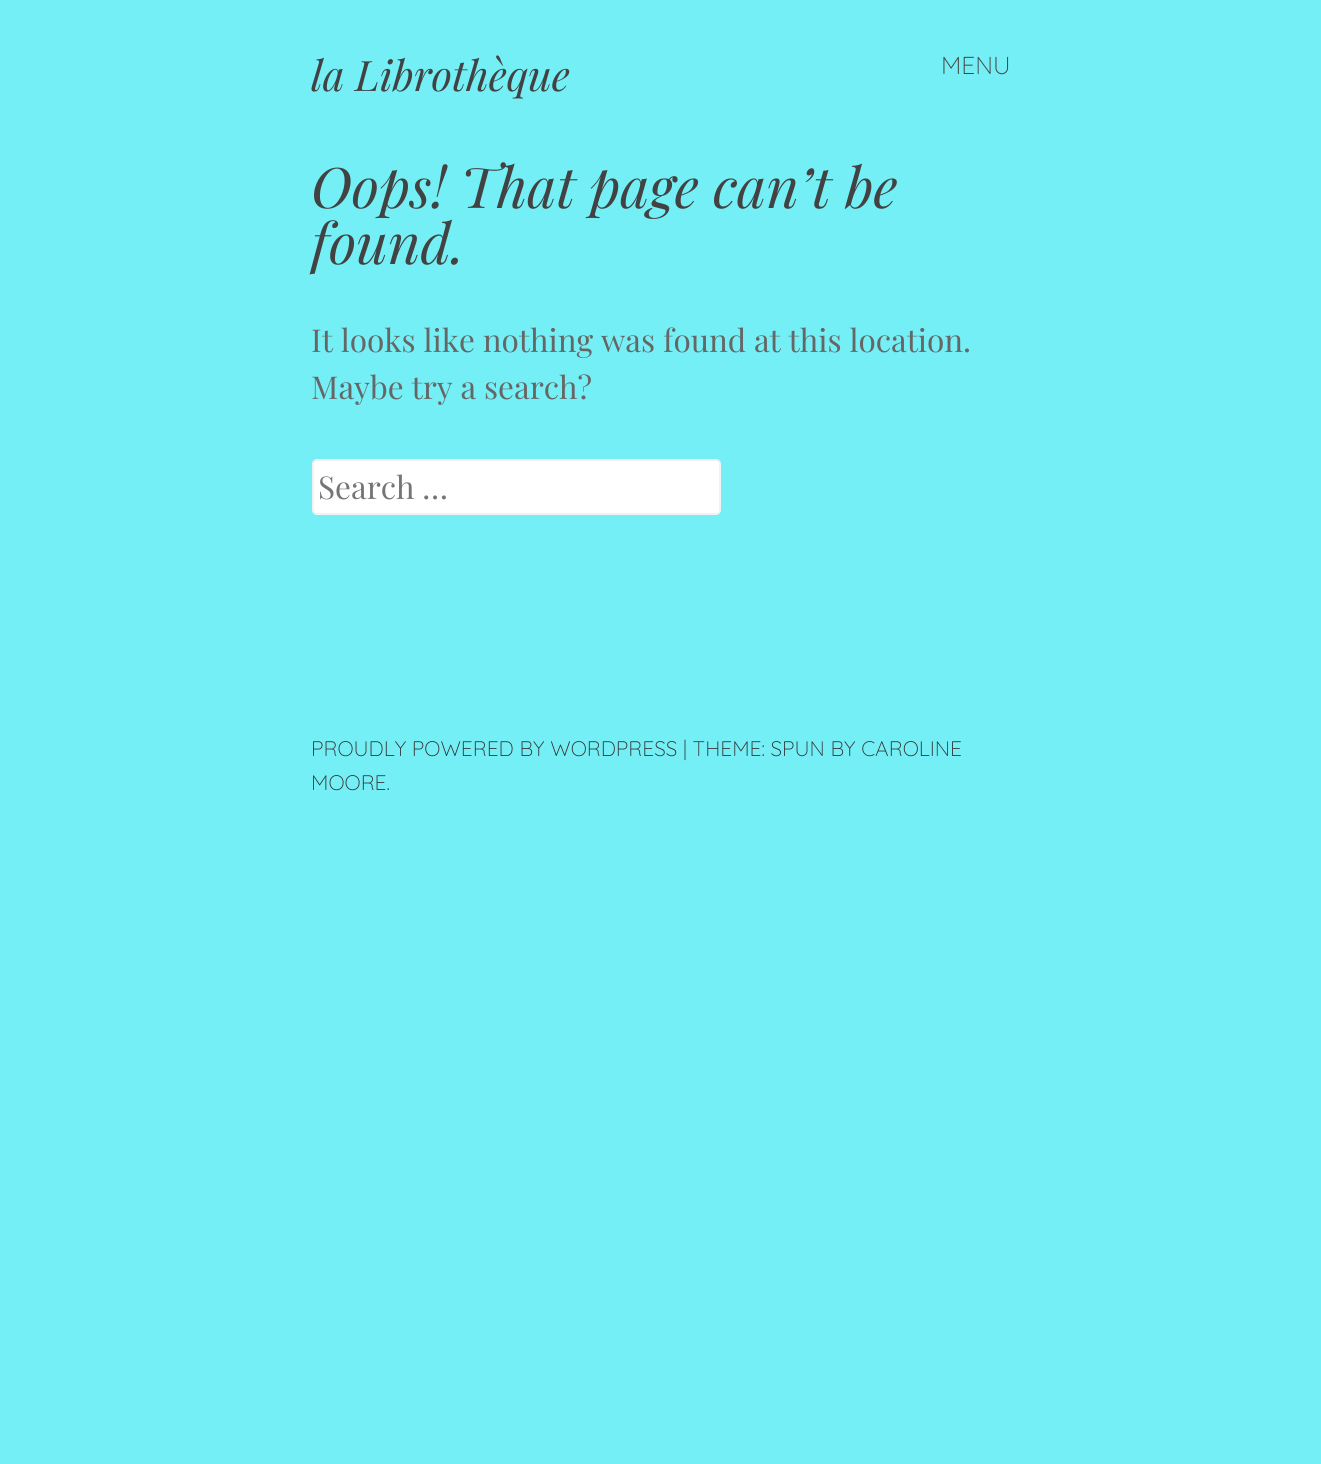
import math
import cairocffi as cairo

surface = cairo.ImageSurface(cairo.FORMAT_RGB24, 1321, 1464)
ctx = cairo.Context(surface)
options = cairo.FontOptions()
options.set_hint_metrics(cairo.HINT_METRICS_OFF)
options.set_hint_style(cairo.HINT_STYLE_NONE)
ctx.set_font_options(options)
ctx.set_miter_limit(4)


def rgb(r, g, b):
    ctx.set_source_rgb(r / 255, g / 255, b / 255)


def face(family, size, italic, bold):
    ctx.select_font_face(family, cairo.FONT_SLANT_ITALIC if italic else cairo.FONT_SLANT_NORMAL, cairo.FONT_WEIGHT_BOLD if bold else cairo.FONT_WEIGHT_NORMAL)
    ctx.set_font_size(size)


def label(x, y, s):
    ctx.move_to(x, y)
    ctx.show_text(s)


def rrect(x, y, w, h, r):
    ctx.new_sub_path()
    for i, (u, v) in enumerate([(x + w - r, y + h - r), (x + r, y + h - r), (x + r, y + r), (x + w - r, y + r)]):
        ctx.arc(u, v, r, i * math.pi / 2, (i + 1) * math.pi / 2)
    ctx.close_path()


rgb(115, 239, 245)
ctx.paint()
face('Playfair Display', 42, 1, 0)
rgb(66, 66, 66)
label(311, 91, 'la Librothèque')
face('Quicksand Light', 24.5, 0, 0)
label(941, 74, 'MENU')
face('Playfair Display', 56, 1, 0)
label(311, 208, 'Oops! That page can’t be')
label(311, 264, 'found.')
face('Playfair Display', 31.5, 0, 0)
rgb(102, 102, 102)
label(311, 352, 'It looks like nothing was found at this location.')
label(311, 399, 'Maybe try a search?')
rgb(255, 255, 255)
rrect(313, 460, 407, 54, 4)
ctx.fill_preserve()
rgb(242, 242, 242)
ctx.stroke()
rgb(117, 117, 117)
label(318, 499, 'Search …')
face('Quicksand Light', 21, 0, 0)
rgb(51, 51, 51)
label(311, 756, 'PROUDLY POWERED BY WORDPRESS | THEME: SPUN BY CAROLINE')
label(311, 790, 'MOORE.')
surface.write_to_png('render.png')
